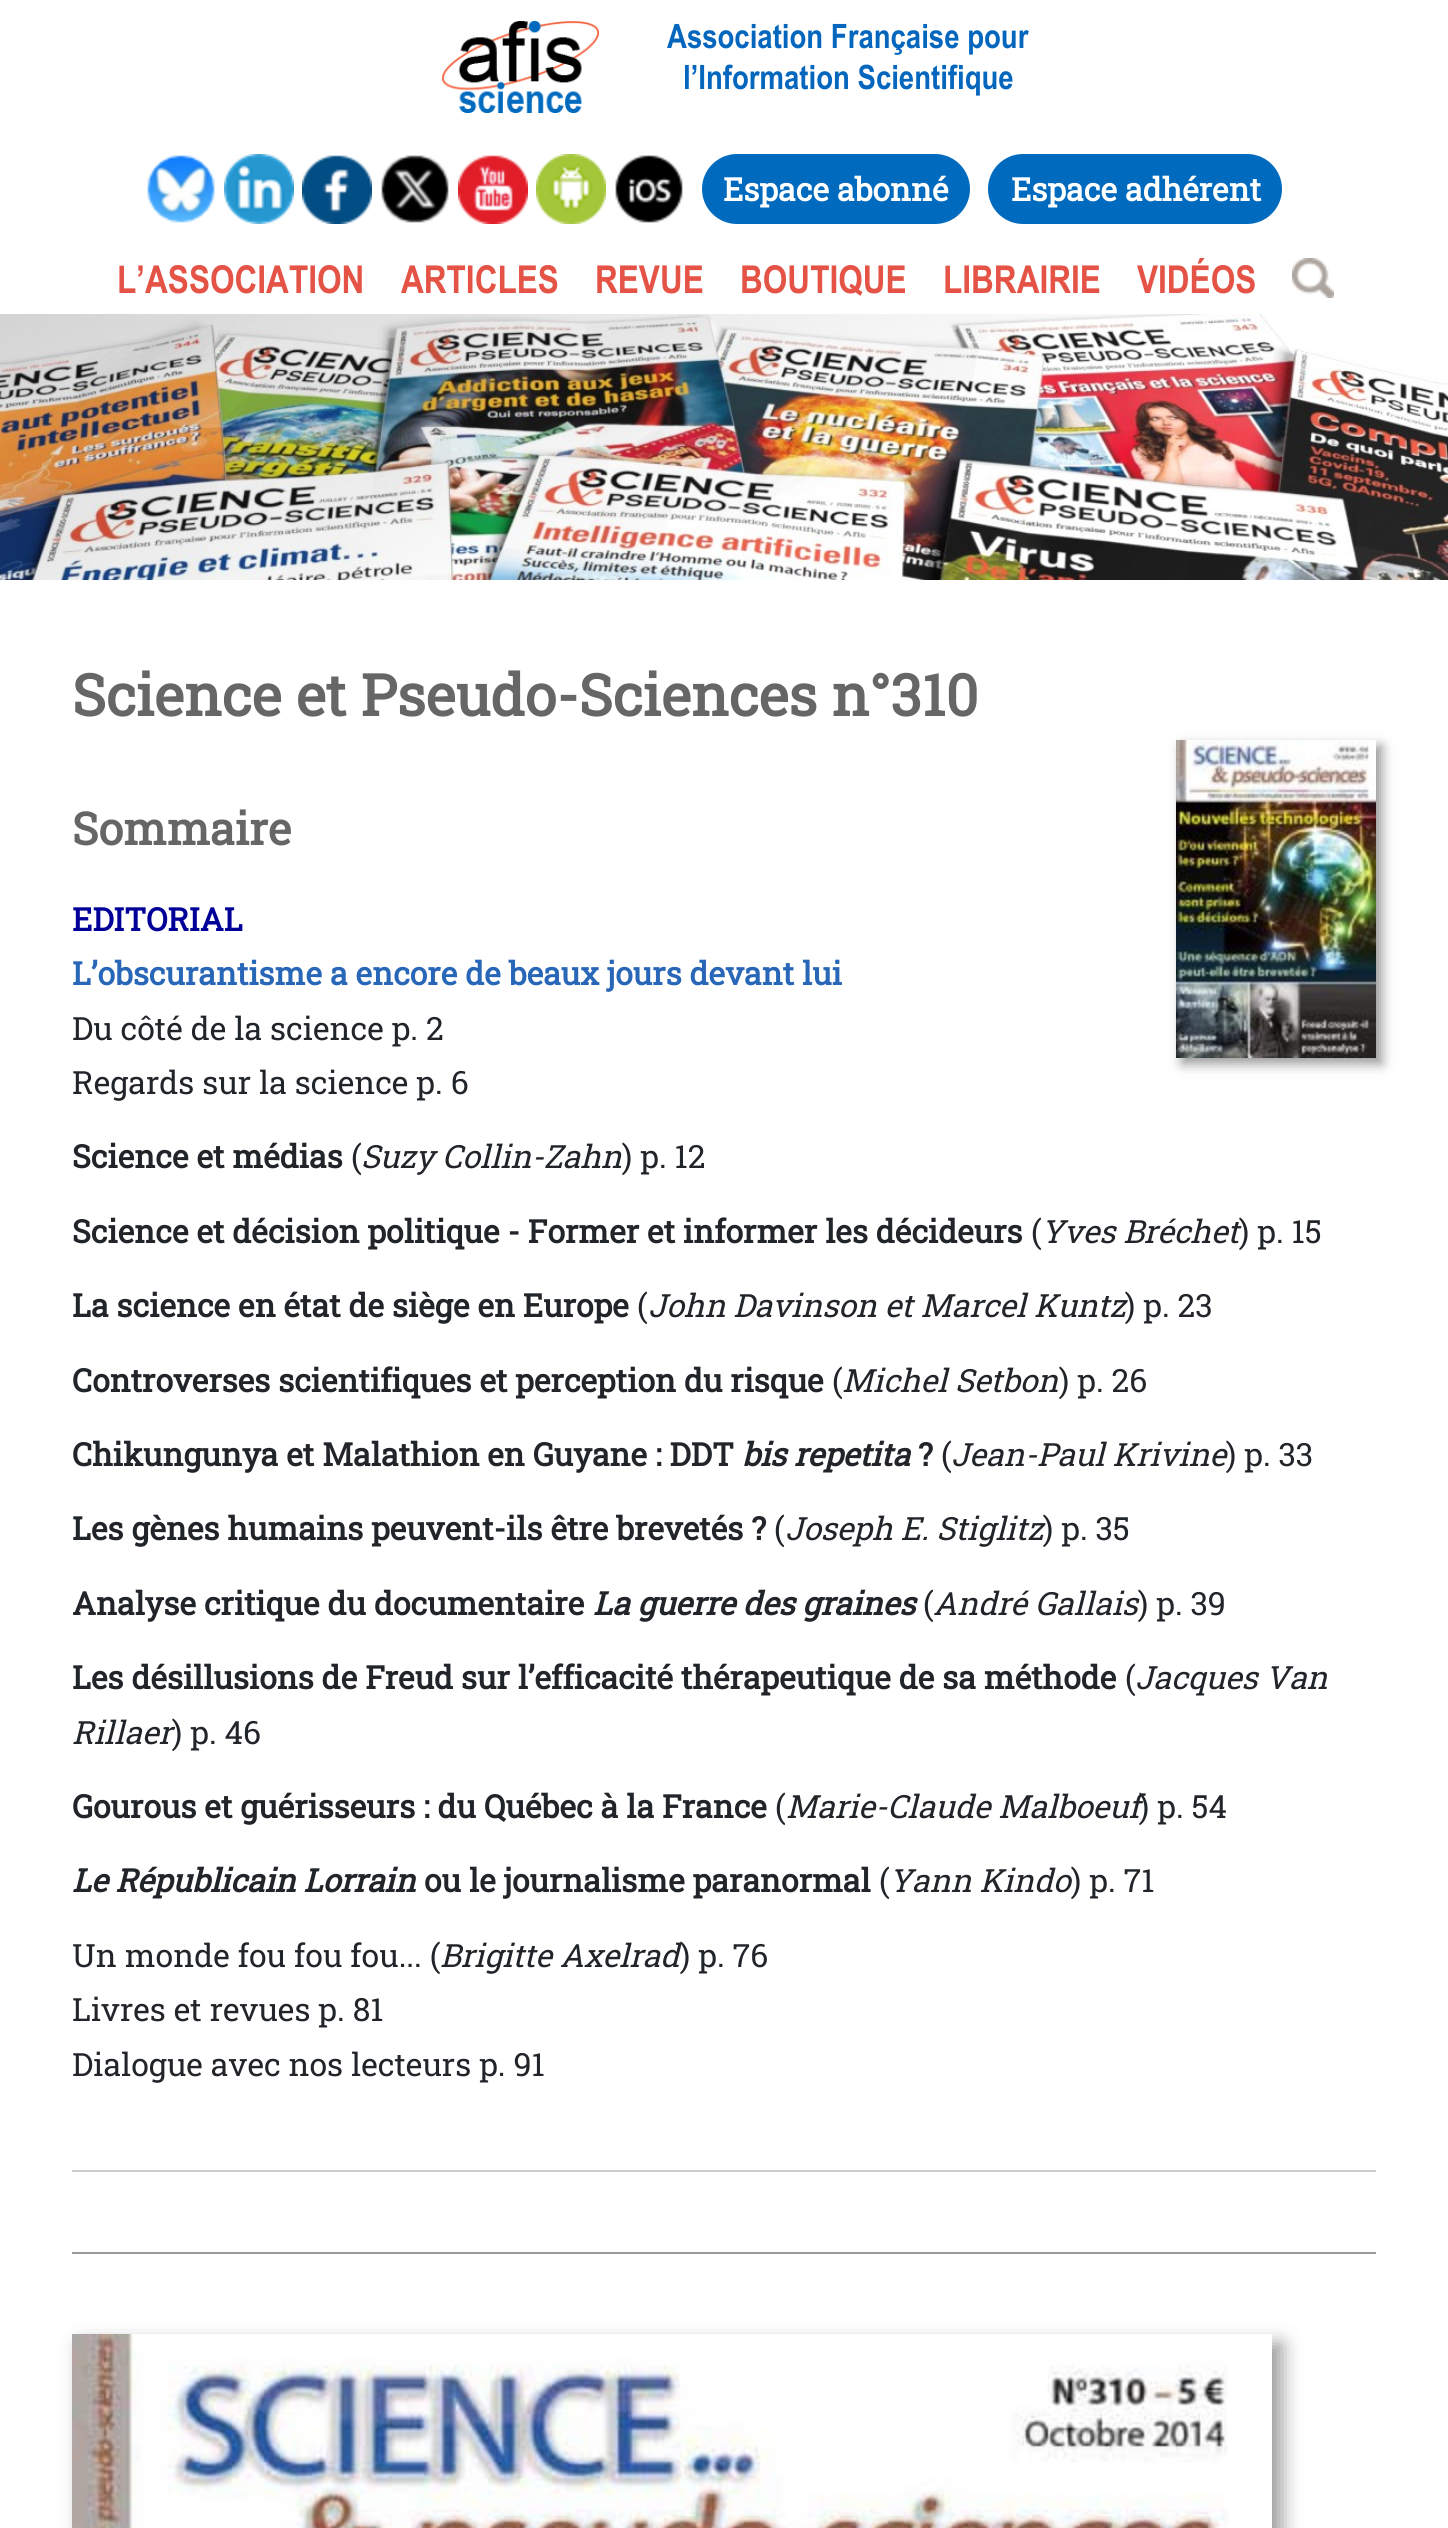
import math
import cairocffi as cairo

surface = cairo.ImageSurface(cairo.FORMAT_RGB24, 1448, 2528)
ctx = cairo.Context(surface)
options = cairo.FontOptions()
options.set_hint_metrics(cairo.HINT_METRICS_OFF)
options.set_hint_style(cairo.HINT_STYLE_NONE)
ctx.set_font_options(options)
ctx.set_miter_limit(4)


def rgb(r, g, b):
    ctx.set_source_rgb(r / 255, g / 255, b / 255)


def face(family, size, italic, bold):
    ctx.select_font_face(family, cairo.FONT_SLANT_ITALIC if italic else cairo.FONT_SLANT_NORMAL, cairo.FONT_WEIGHT_BOLD if bold else cairo.FONT_WEIGHT_NORMAL)
    ctx.set_font_size(size)


def label(x, y, s):
    ctx.move_to(x, y)
    ctx.show_text(s)


def rect(x, y, w, h):
    ctx.rectangle(x, y, w, h)
    ctx.fill()


def rrect(x, y, w, h, r):
    ctx.new_sub_path()
    for i, (u, v) in enumerate([(x + w - r, y + h - r), (x + r, y + h - r), (x + r, y + r), (x + w - r, y + r)]):
        ctx.arc(u, v, r, i * math.pi / 2, (i + 1) * math.pi / 2)
    ctx.close_path()


def soft_shadow(x, y, w, h, r, blur, alpha):
    ctx.push_group_with_content(cairo.CONTENT_ALPHA)
    ctx.set_operator(cairo.OPERATOR_SOURCE)
    for i in range(15, -16, -2):
        e = blur * i / 6
        if min(w, h) + 2 * e > 0:
            ctx.set_source_rgba(0, 0, 0, alpha * math.erfc((i - 1) / 8.5) / 2)
            rrect(x - e, y - e, w + 2 * e, h + 2 * e, max(0, min(r + e + blur * .6, min(w, h) / 2 + e)))
            ctx.fill()
    ctx.mask(ctx.pop_group())


def image(path, x, y, w, h):
    ctx.save()
    ctx.set_source_surface(cairo.ImageSurface.create_from_png(path), x, y)
    ctx.rectangle(x, y, w, h)
    ctx.fill()
    ctx.restore()


rgb(255, 255, 255)
ctx.paint()
image('image0.png', 442, 20, 157, 93)
face('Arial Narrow', 33.6, 0, 1)
rgb(5, 102, 190)
label(667, 48, 'Association Française pour')
label(683, 89, 'l’Information Scientifique')
image('image1.png', 147, 155, 68, 68)
image('image2.png', 224, 154, 70, 70)
image('image3.png', 302, 155, 70, 69)
image('image4.png', 381, 155, 68, 68)
image('image5.png', 458, 155, 70, 69)
image('image6.png', 536, 154, 70, 70)
image('image7.png', 615, 155, 68, 68)
rgb(0, 106, 190)
rrect(703, 155, 266, 68, 34)
ctx.fill_preserve()
ctx.stroke()
face('Roboto Slab', 32, 0, 1)
rgb(255, 255, 255)
label(723, 201, 'Espace abonné')
rgb(0, 106, 190)
rrect(989, 155, 292, 68, 34)
ctx.fill_preserve()
ctx.stroke()
rgb(255, 255, 255)
label(1011, 201, 'Espace adhérent')
face('Arial Narrow', 38.5, 0, 1)
rgb(228, 83, 69)
label(117, 293, 'L’ASSOCIATION')
label(401, 293, 'ARTICLES')
label(595, 293, 'REVUE')
label(740, 293, 'BOUTIQUE')
label(943, 293, 'LIBRAIRIE')
label(1137, 293, 'VIDÉOS')
image('image8.png', 1292, 258, 42, 40)
image('image9.png', 0, 314, 1448, 266)
face('Roboto Slab', 57.6, 0, 1)
rgb(102, 102, 102)
label(72, 716, 'Science et Pseudo-Sciences n°310')
rgb(0, 0, 0)
soft_shadow(1182, 746, 200, 318, 0, 6, 0.4)
image('image10.png', 1176, 740, 200, 318)
face('Roboto Slab', 45, 0, 1)
rgb(102, 102, 102)
label(72, 845, 'Sommaire')
face('Roboto Slab', 32, 0, 1)
rgb(0, 0, 153)
label(72, 931, 'EDITORIAL')
rgb(40, 102, 184)
label(72, 985, 'L’obscurantisme a encore de beaux jours devant lui')
face('Roboto Slab', 32, 0, 0)
rgb(33, 37, 41)
label(72, 1040, 'Du côté de la science p. 2')
label(72, 1094, 'Regards sur la science p. 6')
face('Roboto Slab', 32, 0, 1)
label(72, 1168, 'Science et médias')
face('Roboto Slab', 32, 0, 0)
label(351, 1168, '(')
face('Roboto Slab', 32, 1, 0)
label(361, 1168, 'Suzy Collin-Zahn')
face('Roboto Slab', 32, 0, 0)
label(622, 1168, ') p. 12')
face('Roboto Slab', 32, 0, 1)
label(72, 1243, 'Science et décision politique - Former et informer les décideurs')
face('Roboto Slab', 32, 0, 0)
label(1031, 1243, '(')
face('Roboto Slab', 32, 1, 0)
label(1041, 1243, 'Yves Bréchet')
face('Roboto Slab', 32, 0, 0)
label(1239, 1243, ') p. 15')
face('Roboto Slab', 32, 0, 1)
label(72, 1317, 'La science en état de siège en Europe')
face('Roboto Slab', 32, 0, 0)
label(637, 1317, '(')
face('Roboto Slab', 32, 1, 0)
label(648, 1317, 'John Davinson et Marcel Kuntz')
face('Roboto Slab', 32, 0, 0)
label(1125, 1317, ') p. 23')
face('Roboto Slab', 32, 0, 1)
label(72, 1392, 'Controverses scientifiques et perception du risque')
face('Roboto Slab', 32, 0, 0)
label(832, 1392, '(')
face('Roboto Slab', 32, 1, 0)
label(842, 1392, 'Michel Setbon')
face('Roboto Slab', 32, 0, 0)
label(1059, 1392, ') p. 26')
face('Roboto Slab', 32, 0, 1)
label(72, 1466, 'Chikungunya et Malathion en Guyane : DDT')
face('Roboto Slab', 32, 1, 1)
label(742, 1466, 'bis repetita')
face('Roboto Slab', 32, 0, 1)
label(918, 1466, '?')
face('Roboto Slab', 32, 0, 0)
label(941, 1466, '(')
face('Roboto Slab', 32, 1, 0)
label(951, 1466, 'Jean-Paul Krivine')
face('Roboto Slab', 32, 0, 0)
label(1226, 1466, ') p. 33')
face('Roboto Slab', 32, 0, 1)
label(72, 1540, 'Les gènes humains peuvent-ils être brevetés ?')
face('Roboto Slab', 32, 0, 0)
label(774, 1540, '(')
face('Roboto Slab', 32, 1, 0)
label(785, 1540, 'Joseph E. Stiglitz')
face('Roboto Slab', 32, 0, 0)
label(1043, 1540, ') p. 35')
face('Roboto Slab', 32, 0, 1)
label(72, 1615, 'Analyse critique du documentaire')
face('Roboto Slab', 32, 1, 1)
label(593, 1615, 'La guerre des graines')
face('Roboto Slab', 32, 0, 0)
label(923, 1615, '(')
face('Roboto Slab', 32, 1, 0)
label(933, 1615, 'André Gallais')
face('Roboto Slab', 32, 0, 0)
label(1138, 1615, ') p. 39')
face('Roboto Slab', 32, 0, 1)
label(72, 1689, 'Les désillusions de Freud sur l’efficacité thérapeutique de sa méthode')
face('Roboto Slab', 32, 0, 0)
label(1125, 1689, '(')
face('Roboto Slab', 32, 1, 0)
label(1135, 1689, 'Jacques Van')
label(72, 1744, 'Rillaer')
face('Roboto Slab', 32, 0, 0)
label(172, 1744, ') p. 46')
face('Roboto Slab', 32, 0, 1)
label(72, 1818, 'Gourous et guérisseurs : du Québec à la France')
face('Roboto Slab', 32, 0, 0)
label(775, 1818, '(')
face('Roboto Slab', 32, 1, 0)
label(786, 1818, 'Marie-Claude Malboeuf')
face('Roboto Slab', 32, 0, 0)
label(1139, 1818, ') p. 54')
face('Roboto Slab', 32, 1, 1)
label(72, 1892, 'Le Républicain Lorrain')
face('Roboto Slab', 32, 0, 1)
label(424, 1892, 'ou le journalisme paranormal')
face('Roboto Slab', 32, 0, 0)
label(879, 1892, '(')
face('Roboto Slab', 32, 1, 0)
label(889, 1892, 'Yann Kindo')
face('Roboto Slab', 32, 0, 0)
label(1071, 1892, ') p. 71')
label(72, 1967, 'Un monde fou fou fou... (')
face('Roboto Slab', 32, 1, 0)
label(440, 1967, 'Brigitte Axelrad')
face('Roboto Slab', 32, 0, 0)
label(680, 1967, ') p. 76')
label(72, 2021, 'Livres et revues p. 81')
label(72, 2076, 'Dialogue avec nos lecteurs p. 91')
rgb(204, 204, 204)
rect(72, 2170, 1304, 2)
rgb(153, 153, 153)
rect(72, 2252, 1304, 2)
ctx.save()
ctx.set_fill_rule(cairo.FILL_RULE_EVEN_ODD)
ctx.new_path()
ctx.move_to(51, 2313)
ctx.line_to(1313, 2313)
ctx.line_to(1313, 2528)
ctx.line_to(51, 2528)
ctx.close_path()
ctx.move_to(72, 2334)
ctx.line_to(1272, 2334)
ctx.line_to(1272, 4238)
ctx.line_to(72, 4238)
ctx.close_path()
ctx.clip()
rgb(0, 0, 0)
soft_shadow(82, 2344, 1200, 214, 0, 10, 0.4)
ctx.restore()
image('image11.png', 72, 2334, 1156, 194)
surface.write_to_png('render.png')
